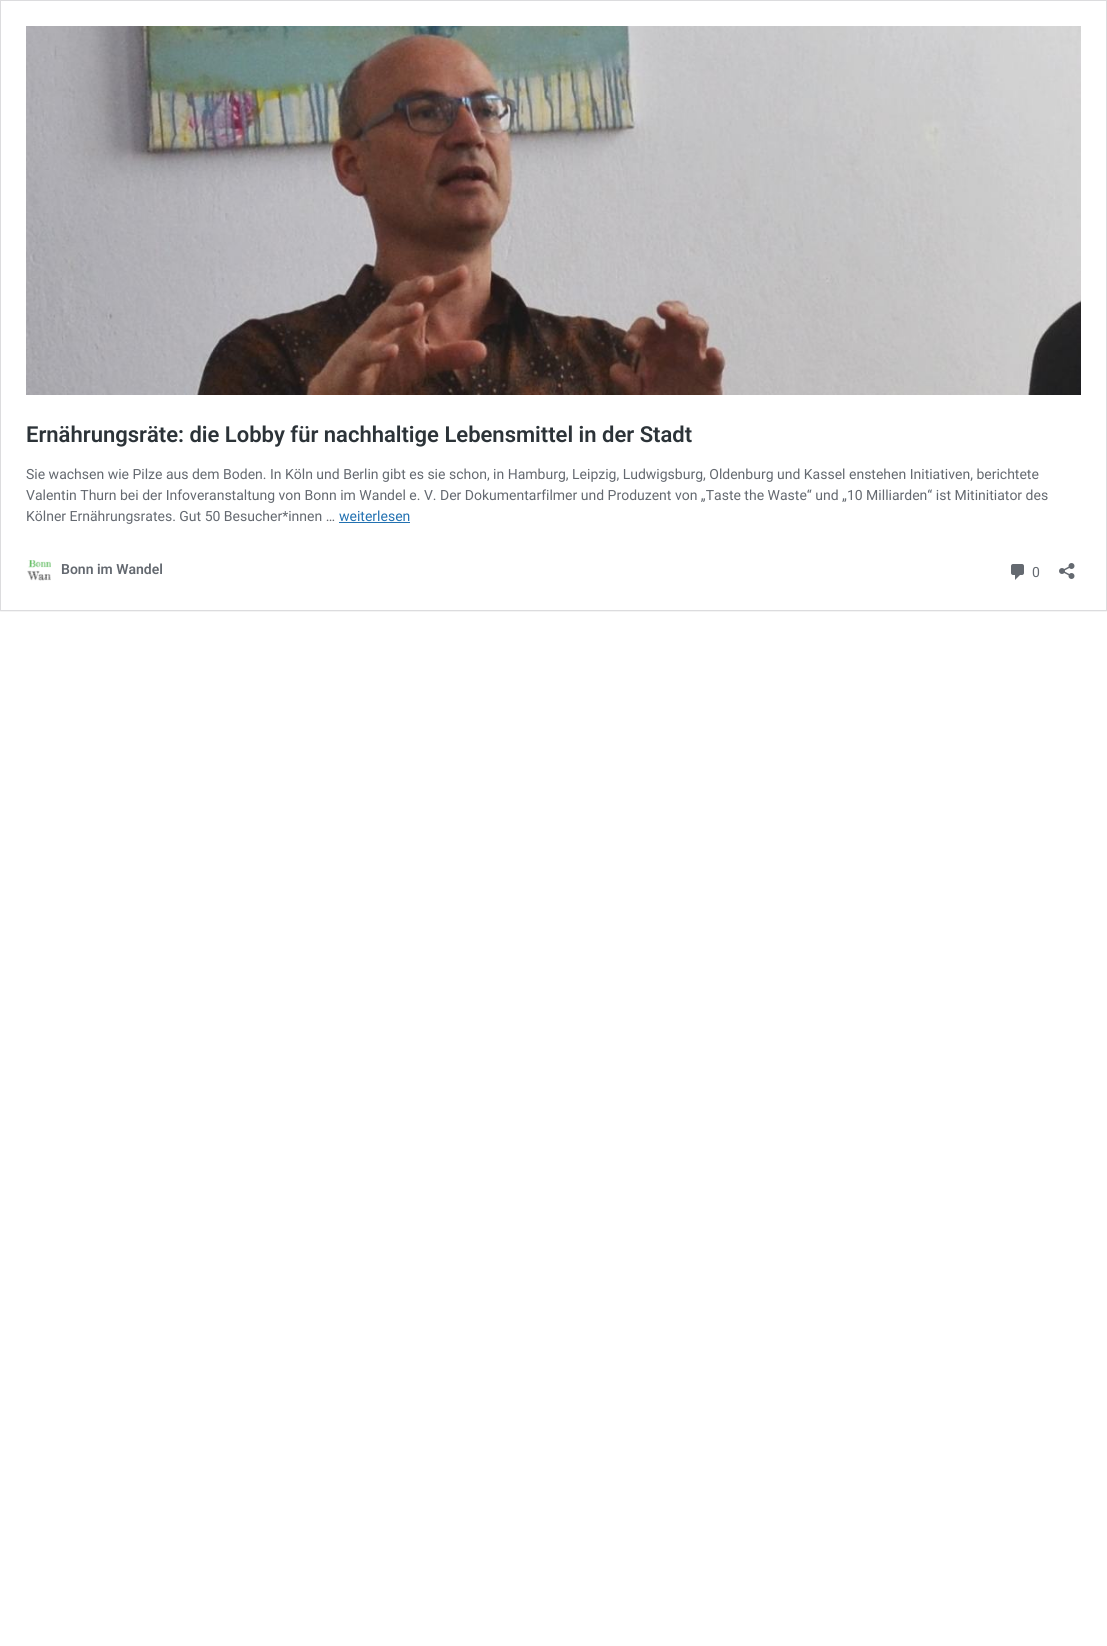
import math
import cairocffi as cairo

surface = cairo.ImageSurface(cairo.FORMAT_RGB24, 1107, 1646)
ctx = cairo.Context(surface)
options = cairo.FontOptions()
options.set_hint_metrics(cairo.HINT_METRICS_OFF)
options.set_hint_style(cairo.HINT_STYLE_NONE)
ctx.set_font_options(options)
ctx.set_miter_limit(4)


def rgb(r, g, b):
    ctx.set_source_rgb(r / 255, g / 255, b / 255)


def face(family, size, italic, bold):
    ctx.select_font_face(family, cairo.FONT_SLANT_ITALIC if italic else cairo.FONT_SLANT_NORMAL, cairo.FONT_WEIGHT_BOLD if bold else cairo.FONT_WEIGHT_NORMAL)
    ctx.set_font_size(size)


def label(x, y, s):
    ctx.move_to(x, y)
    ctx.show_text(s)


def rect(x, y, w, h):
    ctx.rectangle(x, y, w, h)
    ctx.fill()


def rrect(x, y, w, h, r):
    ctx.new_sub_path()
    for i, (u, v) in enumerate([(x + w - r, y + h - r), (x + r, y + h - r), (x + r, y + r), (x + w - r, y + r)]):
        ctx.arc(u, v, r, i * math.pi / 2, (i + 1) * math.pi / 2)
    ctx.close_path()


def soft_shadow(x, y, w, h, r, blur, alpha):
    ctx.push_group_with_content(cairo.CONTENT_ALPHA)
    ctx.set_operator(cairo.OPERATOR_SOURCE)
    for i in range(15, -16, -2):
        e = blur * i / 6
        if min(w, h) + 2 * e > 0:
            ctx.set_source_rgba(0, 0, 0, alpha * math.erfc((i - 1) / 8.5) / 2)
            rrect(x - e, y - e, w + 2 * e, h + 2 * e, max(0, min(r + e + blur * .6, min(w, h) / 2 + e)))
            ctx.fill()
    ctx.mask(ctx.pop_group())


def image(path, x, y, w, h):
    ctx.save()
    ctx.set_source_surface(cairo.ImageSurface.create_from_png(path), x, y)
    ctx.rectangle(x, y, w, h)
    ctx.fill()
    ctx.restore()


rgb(255, 255, 255)
ctx.paint()
ctx.save()
ctx.rectangle(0, 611, 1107, 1)
ctx.clip()
rgb(0, 0, 0)
soft_shadow(0, 1, 1107, 611, 0, 0.5, 0.05)
ctx.restore()
ctx.rectangle(0.5, 0.5, 1106, 610)
rgb(220, 220, 222)
ctx.set_line_width(1)
ctx.stroke()
image('image0.png', 26, 26, 1055, 369)
face('Roboto SemiBold', 22, 0, 0)
rgb(44, 51, 56)
label(26, 442, 'Ernährungsräte: die Lobby für nachhaltige Lebensmittel in der Stadt')
face('Roboto', 14, 0, 0)
rgb(100, 105, 112)
label(26, 479, 'Sie wachsen wie Pilze aus dem Boden. In Köln und Berlin gibt es sie schon, in Hamburg, Leipzig, Ludwigsburg, Oldenburg und Kassel enstehen Initiativen, berichtete')
label(26, 500, 'Valentin Thurn bei der Infoveranstaltung von Bonn im Wandel e. V. Der Dokumentarfilmer und Produzent von „Taste the Waste“ und „10 Milliarden“ ist Mitinitiator des')
label(26, 521, 'Kölner Ernährungsrates. Gut 50 Besucher*innen …')
rgb(34, 113, 177)
label(339, 521, 'weiterlesen')
rect(339, 522, 71, 1)
image('image1.png', 27, 560, 24, 21)
face('Roboto SemiBold', 14, 0, 0)
rgb(100, 105, 112)
label(61, 574, 'Bonn im Wandel')
image('image2.png', 1011, 564, 13, 16)
face('Roboto', 14, 0, 0)
label(1032, 577, '0')
image('image3.png', 1059, 563, 16, 16)
surface.write_to_png('render.png')
